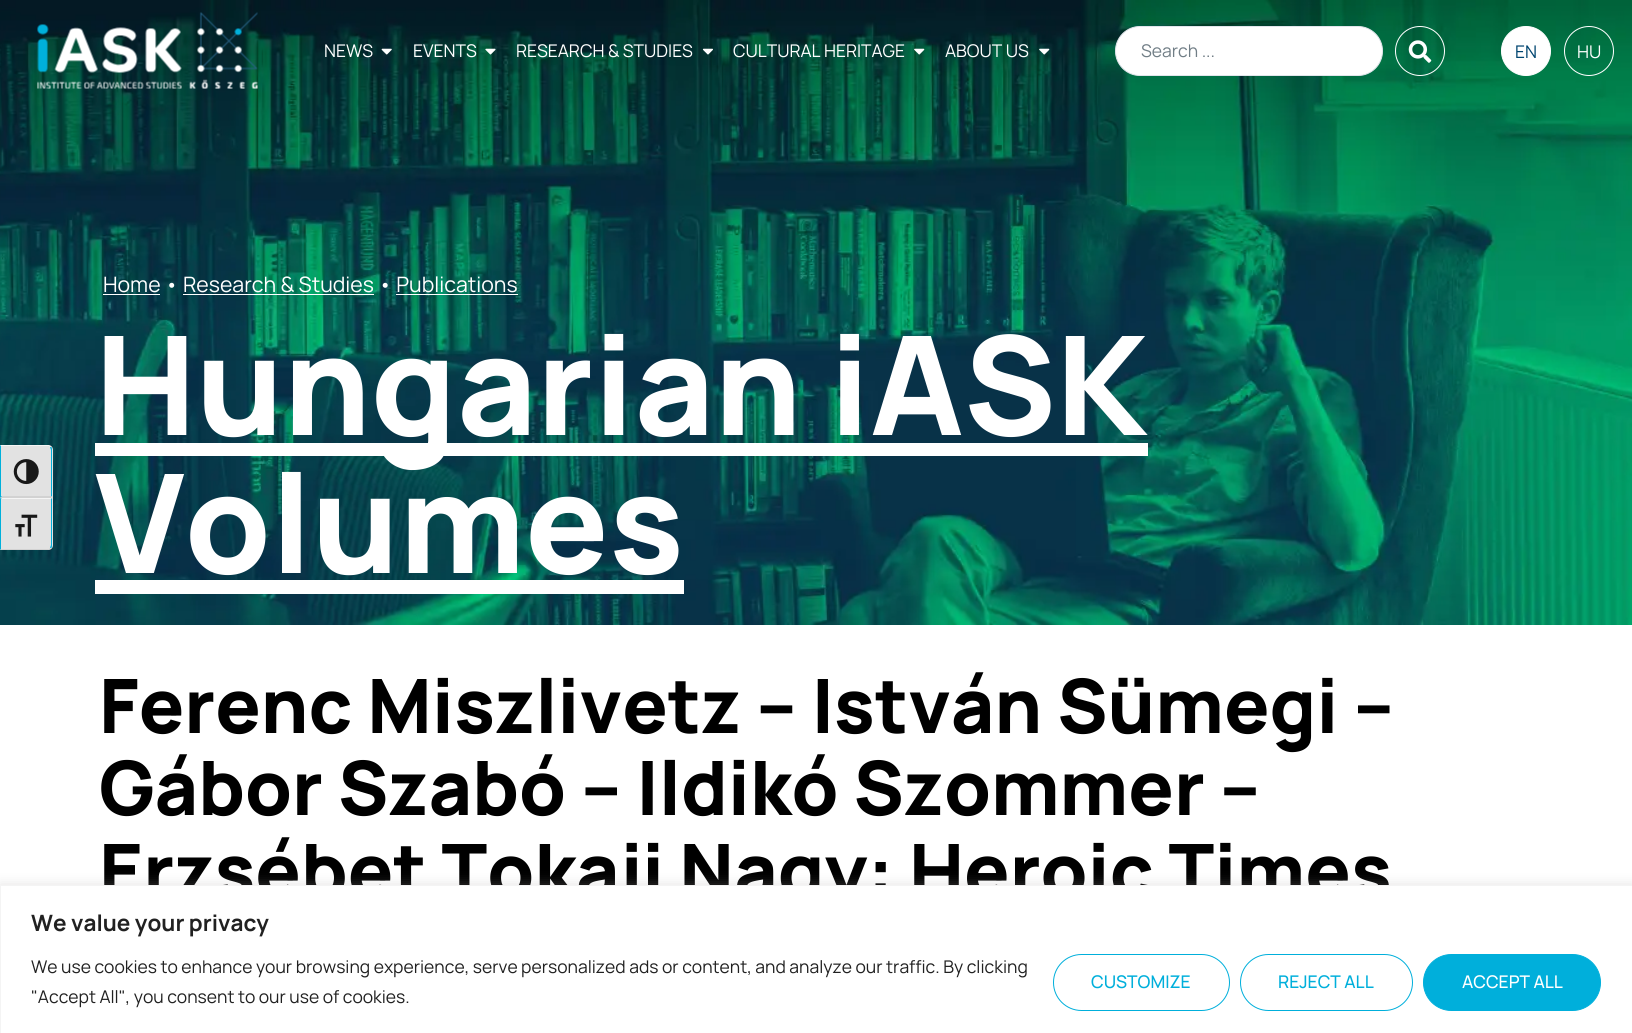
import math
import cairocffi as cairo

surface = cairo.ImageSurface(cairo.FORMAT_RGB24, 1632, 1033)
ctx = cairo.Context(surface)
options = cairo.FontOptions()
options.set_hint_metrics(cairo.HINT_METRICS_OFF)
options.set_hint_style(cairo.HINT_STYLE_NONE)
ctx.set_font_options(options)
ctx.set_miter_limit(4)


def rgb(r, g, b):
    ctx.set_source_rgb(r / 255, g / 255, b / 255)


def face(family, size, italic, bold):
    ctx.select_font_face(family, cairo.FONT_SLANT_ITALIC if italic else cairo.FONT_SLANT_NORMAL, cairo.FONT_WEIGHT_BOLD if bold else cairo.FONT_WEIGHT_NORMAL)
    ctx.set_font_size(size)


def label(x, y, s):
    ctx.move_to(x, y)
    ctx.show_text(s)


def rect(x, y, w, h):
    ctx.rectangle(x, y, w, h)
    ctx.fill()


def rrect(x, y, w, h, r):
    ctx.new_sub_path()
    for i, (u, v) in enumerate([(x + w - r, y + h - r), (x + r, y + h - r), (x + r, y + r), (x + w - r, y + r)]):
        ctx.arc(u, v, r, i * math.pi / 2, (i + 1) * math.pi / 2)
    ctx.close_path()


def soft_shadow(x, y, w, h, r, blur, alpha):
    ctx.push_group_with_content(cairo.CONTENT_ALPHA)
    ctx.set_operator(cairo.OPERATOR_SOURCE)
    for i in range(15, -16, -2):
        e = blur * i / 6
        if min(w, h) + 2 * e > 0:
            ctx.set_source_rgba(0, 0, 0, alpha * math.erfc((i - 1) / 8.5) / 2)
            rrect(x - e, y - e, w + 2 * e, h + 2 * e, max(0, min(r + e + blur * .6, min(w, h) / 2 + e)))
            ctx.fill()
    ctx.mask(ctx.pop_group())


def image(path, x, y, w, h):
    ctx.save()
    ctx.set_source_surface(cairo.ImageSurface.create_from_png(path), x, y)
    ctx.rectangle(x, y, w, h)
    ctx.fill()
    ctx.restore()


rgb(255, 255, 255)
ctx.paint()
image('image9.png', 0, 0, 1632, 625)
rgb(226, 226, 226)
ctx.new_path()
ctx.move_to(0, 445)
ctx.line_to(48, 445)
ctx.curve_to(51, 445, 53, 447, 53, 450)
ctx.line_to(53, 498)
ctx.line_to(0, 498)
ctx.close_path()
ctx.fill()
rgb(245, 245, 245)
ctx.new_path()
ctx.move_to(0, 445)
ctx.line_to(1, 446)
ctx.line_to(49, 446)
ctx.line_to(50, 447)
ctx.line_to(51, 447)
ctx.curve_to(50, 446, 49, 445, 48, 445)
ctx.close_path()
ctx.fill()
rgb(0, 176, 219)
ctx.new_path()
ctx.move_to(51, 447)
ctx.curve_to(52, 447, 52, 449, 52, 450)
ctx.line_to(52, 497)
ctx.line_to(51, 496)
ctx.line_to(51, 450)
ctx.line_to(50, 447)
ctx.close_path()
ctx.fill()
rgb(210, 210, 210)
ctx.new_path()
ctx.move_to(52, 498)
ctx.line_to(0, 498)
ctx.line_to(2, 496)
ctx.line_to(51, 496)
ctx.close_path()
ctx.fill()
rgb(0, 176, 219)
ctx.new_path()
ctx.move_to(0, 445)
ctx.line_to(0, 498)
ctx.line_to(2, 496)
ctx.line_to(1, 496)
ctx.line_to(1, 446)
ctx.close_path()
ctx.fill()
image('image0.png', 13, 459, 26, 26)
rgb(226, 226, 226)
ctx.new_path()
ctx.move_to(0, 498)
ctx.line_to(53, 498)
ctx.line_to(53, 545)
ctx.curve_to(53, 548, 51, 550, 48, 550)
ctx.line_to(0, 550)
ctx.close_path()
ctx.fill()
rgb(245, 245, 245)
ctx.new_path()
ctx.move_to(52, 498)
ctx.line_to(0, 498)
ctx.line_to(2, 499)
ctx.line_to(51, 499)
ctx.close_path()
ctx.fill()
rgb(0, 176, 219)
ctx.new_path()
ctx.move_to(51, 548)
ctx.curve_to(52, 548, 52, 546, 52, 545)
ctx.line_to(52, 498)
ctx.line_to(51, 499)
ctx.line_to(51, 545)
ctx.line_to(50, 548)
ctx.close_path()
ctx.fill()
rgb(210, 210, 210)
ctx.new_path()
ctx.move_to(48, 550)
ctx.curve_to(49, 550, 50, 549, 51, 548)
ctx.line_to(50, 548)
ctx.line_to(49, 549)
ctx.line_to(1, 549)
ctx.line_to(0, 550)
ctx.close_path()
ctx.fill()
rgb(0, 176, 219)
ctx.new_path()
ctx.move_to(1, 499)
ctx.line_to(2, 499)
ctx.line_to(0, 498)
ctx.line_to(0, 550)
ctx.line_to(1, 549)
ctx.close_path()
ctx.fill()
image('image1.png', 15, 514, 23, 23)
image('image2.png', 37, 12, 221, 77)
face('Manrope', 17.5, 0, 0)
rgb(255, 255, 255)
label(324, 57, 'NEWS')
image('image3.png', 381, 48, 11, 7)
label(413, 57, 'EVENTS')
image('image4.png', 485, 48, 11, 7)
label(516, 57, 'RESEARCH & STUDIES')
image('image5.png', 702, 48, 11, 7)
label(733, 57, 'CULTURAL HERITAGE')
image('image6.png', 914, 48, 11, 7)
label(945, 57, 'ABOUT US')
image('image7.png', 1039, 48, 11, 7)
rrect(1115.5, 26.5, 267, 49, 24.5)
ctx.fill_preserve()
rgb(225, 229, 235)
ctx.set_line_width(1)
ctx.stroke()
rgb(113, 126, 134)
label(1141, 57, 'Search ...')
ctx.new_path()
ctx.arc(1420, 51, 24.5, 0, 2 * math.pi)
rgb(255, 255, 255)
ctx.stroke()
image('image8.png', 1408, 40, 24, 23)
ctx.arc(1526, 51, 24.5, 0, 2 * math.pi)
ctx.fill_preserve()
ctx.stroke()
rgb(0, 69, 112)
label(1515, 58, 'EN')
ctx.new_path()
ctx.arc(1589, 51, 24.5, 0, 2 * math.pi)
rgb(255, 255, 255)
ctx.stroke()
label(1577, 58, 'HU')
face('Manrope', 21.25, 0, 0)
label(103, 292, 'Home • Research & Studies • Publications')
rect(103, 294, 57, 1)
rect(183, 294, 191, 1)
rect(396, 294, 122, 1)
rect(95, 443, 1053, 13)
face('Manrope ExtraBold', 137.5, 0, 0)
label(95, 435, 'Hungarian iASK')
label(95, 573, 'Volumes')
rect(95, 580, 589, 14)
face('Manrope ExtraBold', 75, 0, 0)
rgb(0, 0, 0)
label(99, 733, 'Ferenc Miszlivetz – István Sümegi –')
label(99, 815, 'Gábor Szabó – Ildikó Szommer –')
label(99, 898, 'Erzsébet Tokaji Nagy: Heroic Times')
rgb(172, 171, 171)
soft_shadow(0, 884, 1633, 149, 0, 6, 0.3)
rgb(255, 255, 255)
ctx.rectangle(0.5, 885.5, 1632, 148)
ctx.fill_preserve()
rgb(244, 244, 244)
ctx.stroke()
face('Manrope', 22.5, 0, 1)
rgb(33, 33, 33)
label(31, 931, 'We value your privacy')
face('Manrope', 17.5, 0, 0)
label(31, 973, 'We use cookies to enhance your browsing experience, serve personalized ads or content, and analyze our traffic. By clicking')
label(31, 1003, '"Accept All", you consent to our use of cookies.')
rrect(1053.5, 954.5, 176, 56, 28)
rgb(0, 175, 219)
ctx.stroke()
face('Manrope Medium', 17.5, 0, 0)
label(1091, 988, 'CUSTOMIZE')
rrect(1240.5, 954.5, 172, 56, 28)
ctx.stroke()
label(1278, 988, 'REJECT ALL')
rrect(1423.5, 954.5, 177, 56, 28)
ctx.fill_preserve()
ctx.stroke()
rgb(255, 255, 255)
label(1462, 988, 'ACCEPT ALL')
surface.write_to_png('render.png')
